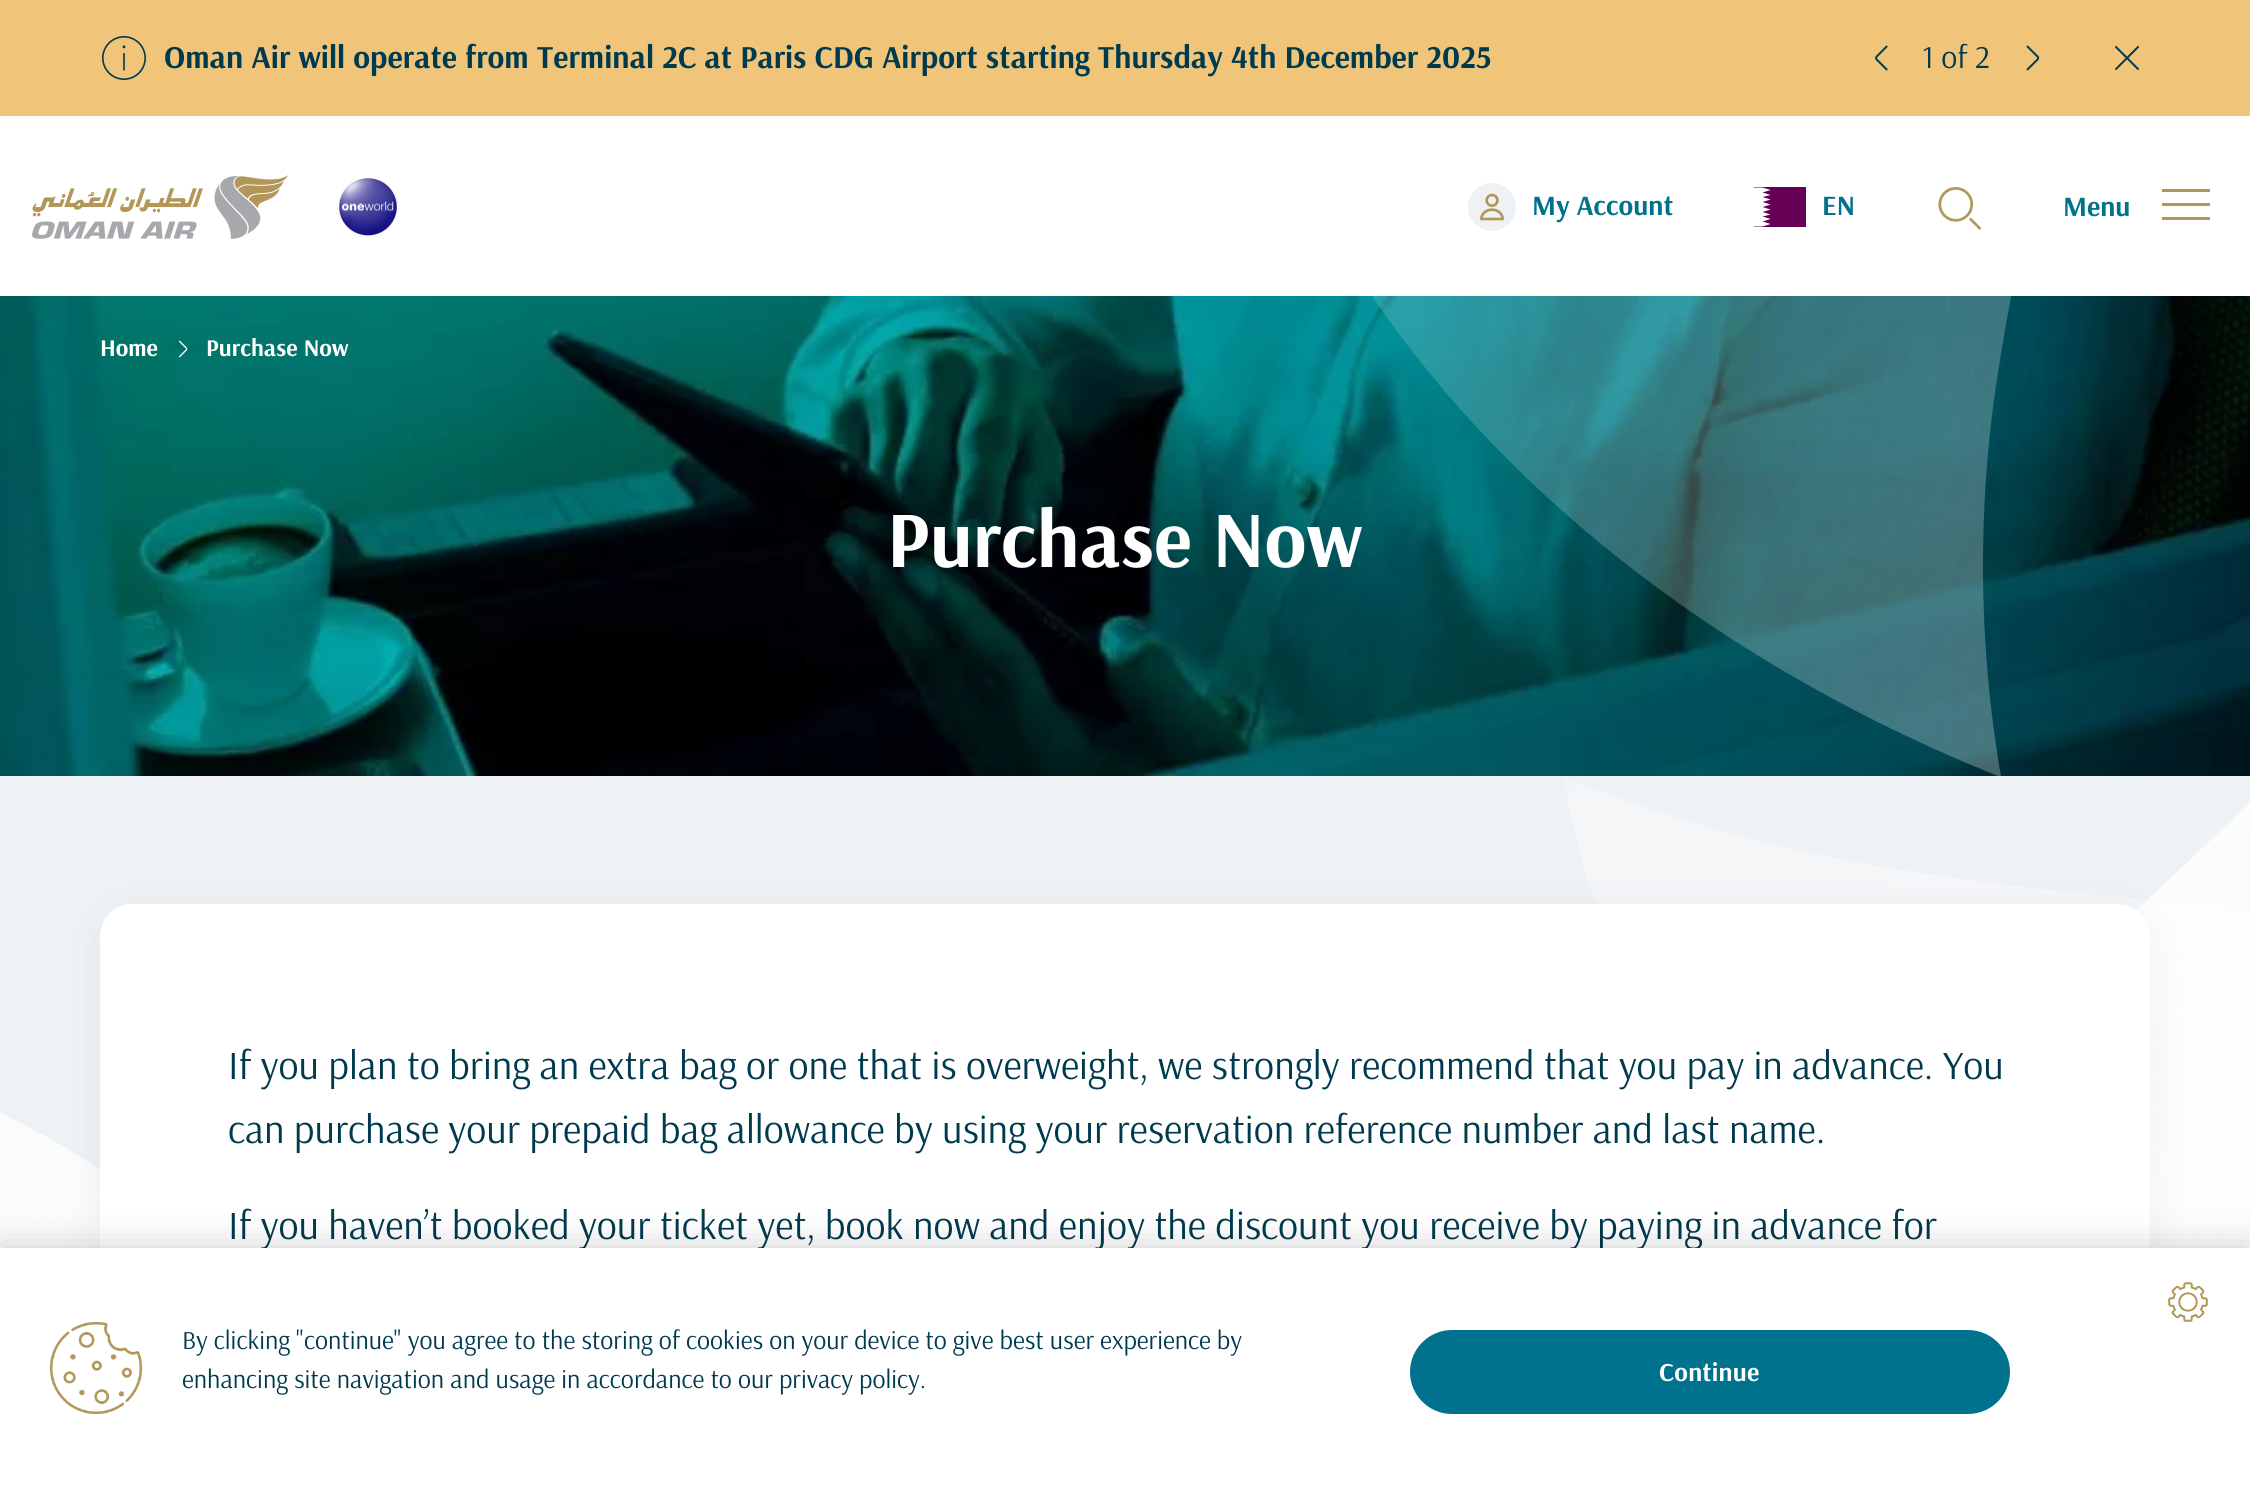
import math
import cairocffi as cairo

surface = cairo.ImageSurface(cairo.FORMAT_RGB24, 2250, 1485)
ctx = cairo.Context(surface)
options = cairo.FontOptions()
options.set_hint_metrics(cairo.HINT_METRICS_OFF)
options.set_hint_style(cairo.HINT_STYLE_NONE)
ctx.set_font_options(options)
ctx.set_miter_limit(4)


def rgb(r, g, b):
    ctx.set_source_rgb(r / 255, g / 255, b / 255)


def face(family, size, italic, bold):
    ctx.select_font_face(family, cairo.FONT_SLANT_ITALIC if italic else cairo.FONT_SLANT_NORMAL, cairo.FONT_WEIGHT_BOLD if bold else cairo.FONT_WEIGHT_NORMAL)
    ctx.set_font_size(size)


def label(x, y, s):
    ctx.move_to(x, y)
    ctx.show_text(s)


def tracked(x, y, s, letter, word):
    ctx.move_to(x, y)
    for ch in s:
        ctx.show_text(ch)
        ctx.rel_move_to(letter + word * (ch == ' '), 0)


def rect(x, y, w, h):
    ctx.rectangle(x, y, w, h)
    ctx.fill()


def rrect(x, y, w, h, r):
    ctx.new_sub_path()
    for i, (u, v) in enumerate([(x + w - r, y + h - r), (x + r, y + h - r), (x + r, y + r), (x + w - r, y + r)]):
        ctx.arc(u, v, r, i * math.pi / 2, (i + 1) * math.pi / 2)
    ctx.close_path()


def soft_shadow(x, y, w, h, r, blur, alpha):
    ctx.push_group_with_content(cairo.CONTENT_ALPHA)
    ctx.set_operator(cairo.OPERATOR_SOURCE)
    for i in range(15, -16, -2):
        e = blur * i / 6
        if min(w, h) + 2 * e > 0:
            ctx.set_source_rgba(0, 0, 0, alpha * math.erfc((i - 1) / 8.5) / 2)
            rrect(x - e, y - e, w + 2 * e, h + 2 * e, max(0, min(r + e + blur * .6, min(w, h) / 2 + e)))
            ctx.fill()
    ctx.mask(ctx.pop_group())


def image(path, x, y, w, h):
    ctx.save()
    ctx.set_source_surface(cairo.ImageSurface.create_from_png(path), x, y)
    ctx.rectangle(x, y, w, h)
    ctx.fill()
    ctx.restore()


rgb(255, 255, 255)
ctx.paint()
rgb(241, 197, 121)
rect(0, 0, 2250, 116)
image('image0.png', 102, 36, 44, 44)
face('Arsenal', 32, 0, 1)
rgb(0, 58, 78)
label(164, 68, 'Oman Air will operate from Terminal 2C at Paris CDG Airport starting Thursday 4th December 2025')
image('image1.png', 1875, 45, 13, 26)
face('Arsenal', 32, 0, 0)
label(1922, 68, '1 of 2')
image('image2.png', 2026, 45, 14, 26)
image('image3.png', 2115, 46, 24, 24)
image('image4.png', 32, 175, 256, 64)
image('image5.png', 337, 178, 62, 59)
image('image6.png', 1468, 183, 48, 48)
face('Arsenal', 28, 0, 1)
rgb(0, 114, 142)
label(1532, 215, 'My Account')
rgb(102, 0, 87)
rect(1754, 187, 52, 40)
ctx.save()
ctx.rectangle(1754, 187, 52, 40)
ctx.clip()
rgb(255, 255, 255)
ctx.set_fill_rule(cairo.FILL_RULE_EVEN_ODD)
ctx.new_path()
ctx.move_to(1762.5, 226.5)
ctx.line_to(1751, 226.5)
ctx.line_to(1751, 187.5)
ctx.line_to(1762.5, 187.5)
ctx.line_to(1770.5, 190)
ctx.line_to(1762.5, 192.5)
ctx.line_to(1770.5, 195)
ctx.line_to(1762.5, 197)
ctx.line_to(1770.5, 199.5)
ctx.line_to(1762.5, 202)
ctx.line_to(1770.5, 204.5)
ctx.line_to(1762.5, 207)
ctx.line_to(1770.5, 209.5)
ctx.line_to(1762.5, 212)
ctx.line_to(1770.5, 214.5)
ctx.line_to(1762.5, 216.5)
ctx.line_to(1770.5, 219)
ctx.line_to(1762.5, 221.5)
ctx.line_to(1770.5, 224)
ctx.line_to(1762.5, 226.5)
ctx.fill()
ctx.restore()
rgb(0, 114, 142)
label(1822, 215, 'EN')
image('image7.png', 1938, 187, 43, 43)
label(2063, 216, 'Menu')
rgb(179, 151, 89)
ctx.set_fill_rule(cairo.FILL_RULE_EVEN_ODD)
ctx.new_path()
ctx.move_to(2162, 220)
ctx.line_to(2210, 220)
ctx.line_to(2210, 217)
ctx.line_to(2162, 217)
ctx.close_path()
ctx.move_to(2162, 206)
ctx.line_to(2210, 206)
ctx.line_to(2210, 203)
ctx.line_to(2162, 203)
ctx.close_path()
ctx.move_to(2162, 189)
ctx.line_to(2162, 192)
ctx.line_to(2210, 192)
ctx.line_to(2210, 189)
ctx.close_path()
ctx.fill()
rgb(239, 242, 245)
rect(0, 776, 2250, 472)
image('image9.png', 0, 296, 2250, 480)
face('Arsenal', 24, 0, 1)
rgb(255, 255, 255)
label(100, 356, 'Home')
image('image8.png', 178, 340, 10, 18)
label(206, 356, 'Purchase Now')
face('Arsenal', 80, 0, 1)
label(887, 567, 'Purchase Now')
image('image10.png', 1372, 296, 639, 480)
image('image11.png', 0, 778, 2250, 470)
rgb(0, 59, 78)
soft_shadow(100, 912, 2050, 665, 32, 20, 0.07)
rgb(255, 255, 255)
ctx.new_path()
ctx.move_to(132, 904)
ctx.line_to(2118, 904)
ctx.curve_to(2135.5, 904, 2150, 918.5, 2150, 936)
ctx.line_to(2150, 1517)
ctx.line_to(132, 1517)
ctx.curve_to(114.5, 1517, 100, 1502.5, 100, 1485)
ctx.line_to(100, 936)
ctx.curve_to(100, 918.5, 114.5, 904, 132, 904)
ctx.close_path()
ctx.fill()
face('Arsenal', 40, 0, 0)
rgb(0, 58, 78)
label(228, 1079, 'If you plan to bring an extra bag or one that is overweight, we strongly recommend that you pay in advance. You')
label(228, 1143, 'can purchase your prepaid bag allowance by using your reservation reference number and last name.')
label(228, 1239, 'If you haven’t booked your ticket yet, book now and enjoy the discount you receive by paying in advance for')
rgb(0, 0, 0)
soft_shadow(0, 1248, 2250, 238, 0, 18, 0.2)
rgb(255, 255, 255)
rect(0, 1248, 2250, 237)
image('image12.png', 50, 1322, 92, 92)
face('Arsenal', 26, 0, 0)
rgb(0, 58, 78)
label(182, 1349, 'By clicking "continue" you agree to the storing of cookies on your device to give best user experience by')
label(182, 1388, 'enhancing site navigation and usage in accordance to our privacy policy.')
image('image13.png', 2168, 1282, 40, 40)
rgb(0, 114, 142)
rrect(1411, 1331, 598, 82, 41)
ctx.fill_preserve()
ctx.stroke()
face('Arsenal', 26, 0, 1)
rgb(255, 255, 255)
tracked(1659, 1381, 'Continue', 0.25, 0)
surface.write_to_png('render.png')
